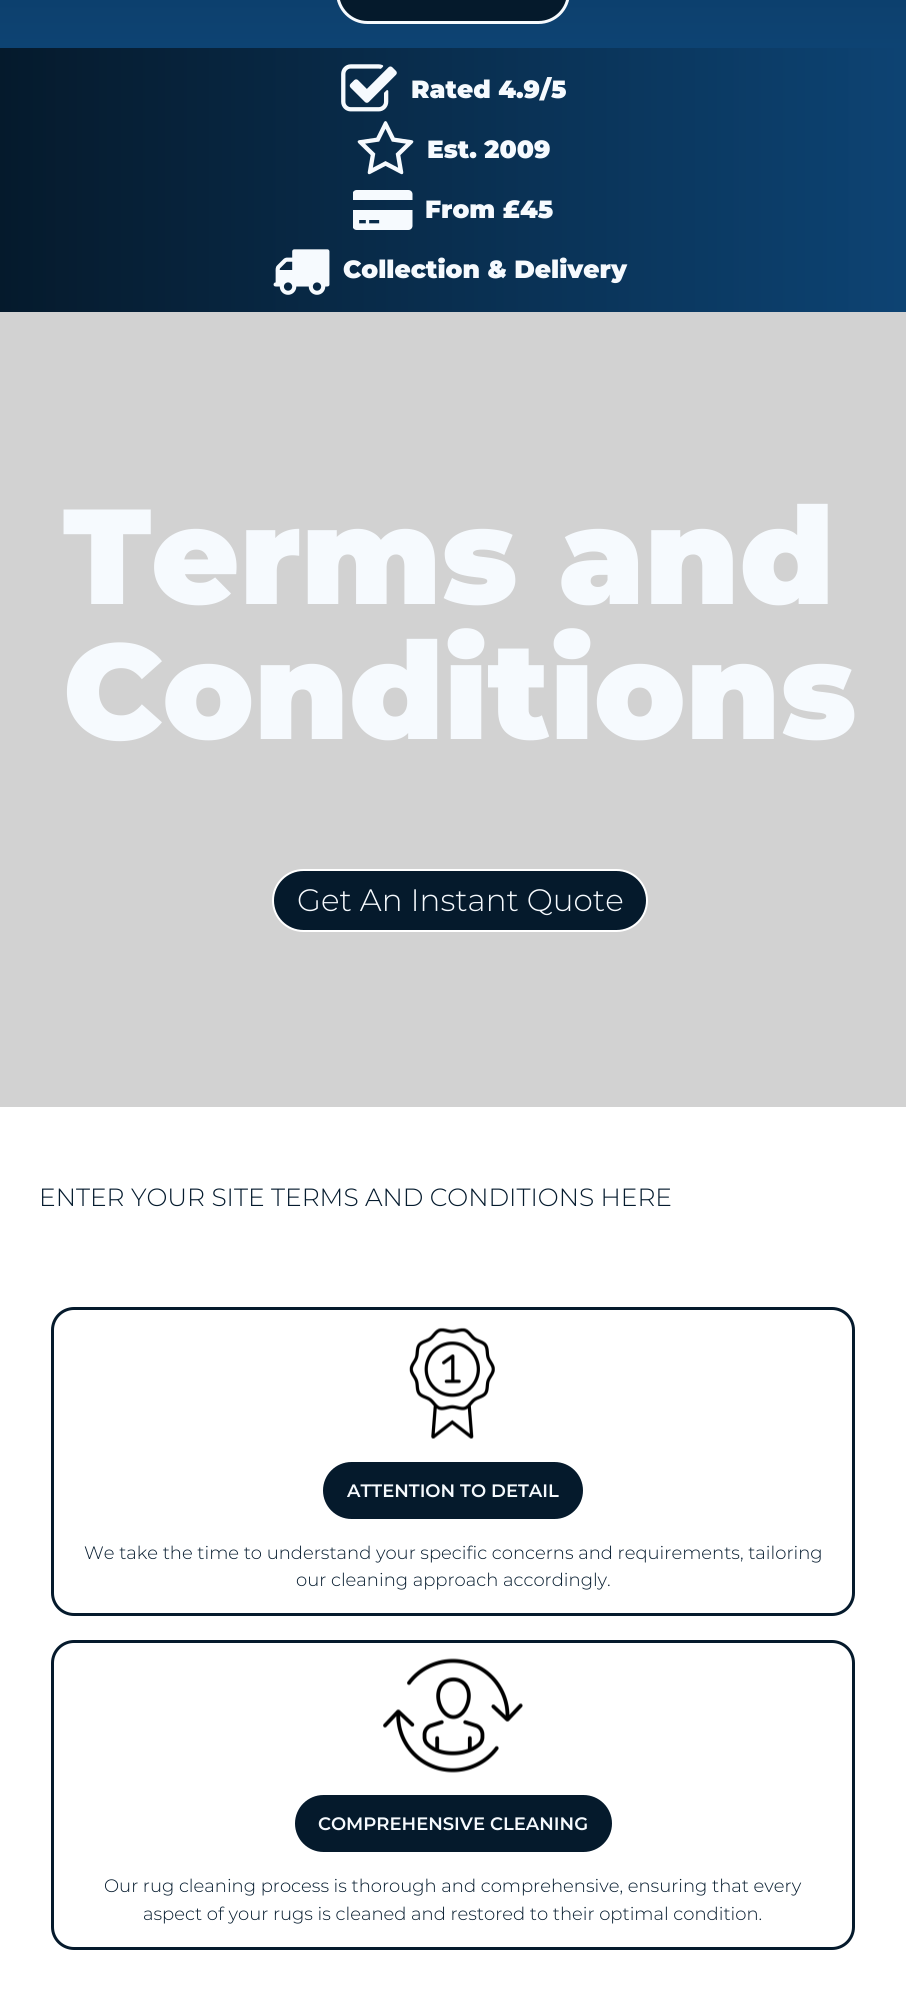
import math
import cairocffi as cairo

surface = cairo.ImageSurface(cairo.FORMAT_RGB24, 906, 1989)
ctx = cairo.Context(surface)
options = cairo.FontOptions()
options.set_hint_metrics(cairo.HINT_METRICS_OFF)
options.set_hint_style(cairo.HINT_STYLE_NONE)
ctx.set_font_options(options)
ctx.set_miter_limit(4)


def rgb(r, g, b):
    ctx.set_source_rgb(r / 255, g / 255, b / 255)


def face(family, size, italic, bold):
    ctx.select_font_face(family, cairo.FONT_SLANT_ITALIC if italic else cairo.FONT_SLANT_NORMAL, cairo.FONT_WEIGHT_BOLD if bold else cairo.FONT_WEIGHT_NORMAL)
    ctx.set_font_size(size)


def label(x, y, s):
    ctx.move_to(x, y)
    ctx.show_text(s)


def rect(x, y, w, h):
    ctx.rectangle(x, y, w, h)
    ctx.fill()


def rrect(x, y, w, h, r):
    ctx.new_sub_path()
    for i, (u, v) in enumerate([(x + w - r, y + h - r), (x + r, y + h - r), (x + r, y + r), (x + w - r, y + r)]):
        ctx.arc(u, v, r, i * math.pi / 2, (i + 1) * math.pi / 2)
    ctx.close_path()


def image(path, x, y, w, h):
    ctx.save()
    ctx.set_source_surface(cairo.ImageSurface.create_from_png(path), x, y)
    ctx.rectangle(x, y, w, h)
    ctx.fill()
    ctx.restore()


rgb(255, 255, 255)
ctx.paint()
gradient = cairo.LinearGradient(453, -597, 453, 48)
gradient.add_color_stop_rgba(0, 0.02, 0.102, 0.173, 1)
gradient.add_color_stop_rgba(1, 0.051, 0.263, 0.451, 1)
ctx.set_source(gradient)
rect(0, 0, 906, 48)
rgb(5, 26, 44)
rrect(337.5, -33.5, 231, 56, 30)
ctx.fill_preserve()
rgb(246, 250, 254)
ctx.set_line_width(3)
ctx.stroke()
gradient = cairo.LinearGradient(0, 180, 906, 180)
gradient.add_color_stop_rgba(0, 0.02, 0.102, 0.173, 1)
gradient.add_color_stop_rgba(1, 0.051, 0.263, 0.451, 1)
ctx.set_source(gradient)
rect(0, 48, 906, 264)
image('image0.png', 341, 64, 56, 48)
face('Montserrat Black', 24.9, 0, 0)
rgb(246, 250, 254)
label(411, 98, 'Rated 4.9/5')
image('image1.png', 357, 121, 57, 54)
label(427, 158, 'Est. 2009')
image('image2.png', 353, 190, 60, 40)
label(425, 218, 'From £45')
image('image3.png', 273, 249, 57, 46)
label(343, 278, 'Collection & Delivery')
rgb(210, 210, 210)
rect(0, 312, 906, 795)
face('Montserrat Black', 135, 0, 0)
rgb(246, 250, 254)
label(63, 604, 'Terms and')
label(63, 739, 'Conditions')
rgb(5, 26, 44)
rrect(273, 870, 374, 61, 30.5)
ctx.fill_preserve()
rgb(255, 255, 255)
ctx.set_line_width(2)
ctx.stroke()
face('Montserrat Light', 31, 0, 0)
rgb(246, 250, 254)
label(297, 911, 'Get An Instant Quote')
face('Montserrat Light', 24.9, 0, 0)
rgb(5, 27, 46)
label(39, 1206, 'ENTER YOUR SITE TERMS AND CONDITIONS HERE')
rrect(52.5, 1308.5, 801, 306, 21.5)
rgb(5, 26, 44)
ctx.set_line_width(3)
ctx.stroke()
image('image4.png', 409, 1327, 86, 112)
rrect(322, 1461, 262, 59, 29.5)
ctx.fill_preserve()
rgb(255, 255, 255)
ctx.set_line_width(2)
ctx.stroke()
face('Montserrat SemiBold', 18, 0, 0)
rgb(246, 250, 254)
label(347, 1497, 'ATTENTION TO DETAIL')
face('Montserrat Light', 18, 0, 0)
rgb(5, 27, 46)
label(84, 1559, 'We take the time to understand your specific concerns and requirements, tailoring')
label(296, 1586, 'our cleaning approach accordingly.')
rrect(52.5, 1641.5, 801, 307, 21.5)
rgb(5, 26, 44)
ctx.set_line_width(3)
ctx.stroke()
image('image5.png', 383, 1658, 140, 115)
rrect(294, 1794, 319, 59, 29.5)
ctx.fill_preserve()
rgb(255, 255, 255)
ctx.set_line_width(2)
ctx.stroke()
face('Montserrat SemiBold', 18, 0, 0)
rgb(246, 250, 254)
label(318, 1830, 'COMPREHENSIVE CLEANING')
face('Montserrat Light', 18, 0, 0)
rgb(5, 27, 46)
label(104, 1892, 'Our rug cleaning process is thorough and comprehensive, ensuring that every')
label(143, 1920, 'aspect of your rugs is cleaned and restored to their optimal condition.')
surface.write_to_png('render.png')
